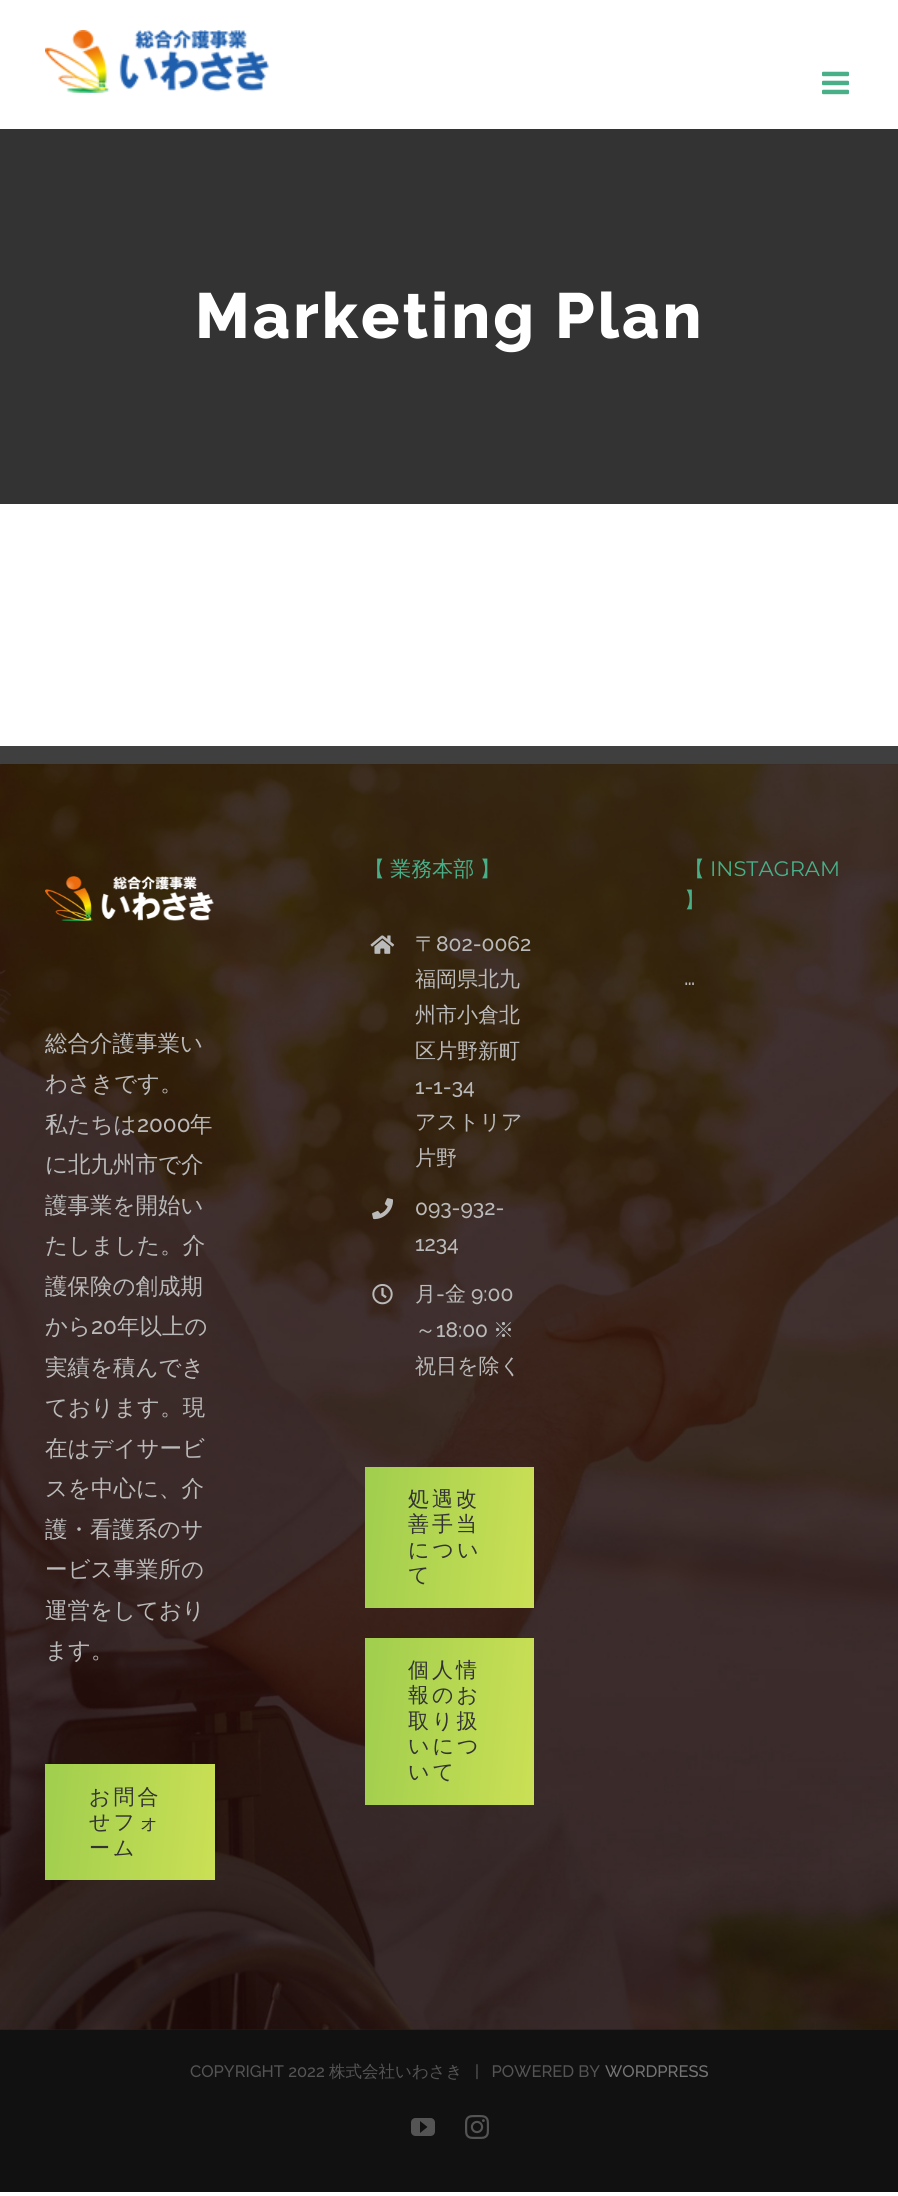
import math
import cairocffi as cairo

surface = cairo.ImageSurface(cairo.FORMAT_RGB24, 898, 2196)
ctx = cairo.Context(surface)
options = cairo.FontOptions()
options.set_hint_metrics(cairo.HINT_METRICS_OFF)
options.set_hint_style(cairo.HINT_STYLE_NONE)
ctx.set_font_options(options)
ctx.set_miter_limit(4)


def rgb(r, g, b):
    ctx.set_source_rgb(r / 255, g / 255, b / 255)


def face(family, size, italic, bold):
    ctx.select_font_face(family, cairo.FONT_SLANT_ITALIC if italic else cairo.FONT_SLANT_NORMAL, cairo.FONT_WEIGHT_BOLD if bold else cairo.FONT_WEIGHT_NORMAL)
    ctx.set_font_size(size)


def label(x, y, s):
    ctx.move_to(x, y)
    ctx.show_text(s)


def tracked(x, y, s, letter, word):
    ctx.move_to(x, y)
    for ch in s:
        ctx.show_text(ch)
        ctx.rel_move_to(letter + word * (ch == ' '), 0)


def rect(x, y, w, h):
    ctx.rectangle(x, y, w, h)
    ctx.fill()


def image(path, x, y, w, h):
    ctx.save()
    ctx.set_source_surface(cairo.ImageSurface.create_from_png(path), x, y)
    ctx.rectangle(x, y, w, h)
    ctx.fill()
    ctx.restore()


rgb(255, 255, 255)
ctx.paint()
image('image0.png', 45, 30, 225, 63)
image('image1.png', 822, 71, 27, 24)
rgb(51, 51, 51)
rect(0, 129, 898, 375)
face('Raleway ExtraBold', 63.75, 0, 0)
rgb(255, 255, 255)
tracked(195, 338, 'Marketing Plan', 3, 0)
rgb(30, 30, 30)
rect(0, 764, 898, 1266)
image('image2.png', 0, 764, 898, 1266)
rgb(63, 63, 63)
rect(0, 746, 898, 18)
face('WenQuanYi Zen Hei Medium', 21, 0, 0)
rgb(73, 175, 137)
tracked(364, 876, '【 業務本部 】', 0, -1)
image('image3.png', 370, 935, 25, 19)
rgb(186, 186, 186)
label(415, 951, '〒')
face('Raleway Medium', 21, 0, 0)
label(436, 951, '802-0062')
face('WenQuanYi Zen Hei Medium', 21, 0, 0)
label(415, 986, '福岡県北九')
label(415, 1022, '州市小倉北')
label(415, 1058, '区片野新町')
face('Raleway Medium', 21, 0, 0)
label(415, 1094, '1-1-34')
face('WenQuanYi Zen Hei Medium', 21, 0, 0)
label(415, 1129, 'アストリア')
label(415, 1165, '片野')
image('image4.png', 372, 1198, 21, 22)
face('Raleway Medium', 21, 0, 0)
label(415, 1215, '093-932-')
label(415, 1251, '1234')
image('image5.png', 372, 1284, 21, 21)
face('WenQuanYi Zen Hei Medium', 21, 0, 0)
label(415, 1301, '月')
face('Raleway Medium', 21, 0, 0)
label(436, 1301, '-')
face('WenQuanYi Zen Hei Medium', 21, 0, 0)
label(445, 1301, '金')
face('Raleway Medium', 21, 0, 0)
label(471, 1301, '9:00')
face('WenQuanYi Zen Hei Medium', 21, 0, 0)
label(415, 1337, '～')
face('Raleway Medium', 21, 0, 0)
label(436, 1337, '18:00')
face('WenQuanYi Zen Hei Medium', 21, 0, 0)
label(493, 1337, '※')
label(415, 1373, '祝日を除く')
gradient = cairo.LinearGradient(358, 1528, 540, 1547)
gradient.add_color_stop_rgba(0, 0.627, 0.808, 0.306, 1)
gradient.add_color_stop_rgba(1, 0.796, 0.878, 0.333, 1)
ctx.set_source(gradient)
rect(365, 1467, 169, 141)
rgb(51, 51, 51)
tracked(408, 1506, '処遇改', 3, 0)
tracked(408, 1531, '善手当', 3, 0)
tracked(408, 1557, 'につい', 3, 0)
tracked(408, 1582, 'て', 3, 0)
gradient = cairo.LinearGradient(357, 1712, 542, 1731)
gradient.add_color_stop_rgba(0, 0.627, 0.808, 0.306, 1)
gradient.add_color_stop_rgba(1, 0.796, 0.878, 0.333, 1)
ctx.set_source(gradient)
rect(365, 1638, 169, 167)
rgb(51, 51, 51)
tracked(408, 1677, '個人情', 3, 0)
tracked(408, 1702, '報のお', 3, 0)
tracked(408, 1728, '取り扱', 3, 0)
tracked(408, 1753, 'いにつ', 3, 0)
tracked(408, 1779, 'いて', 3, 0)
rgb(73, 175, 137)
label(684, 876, '【')
face('Montserrat Thin', 21, 0, 0)
label(710, 876, 'INSTAGRAM')
face('WenQuanYi Zen Hei Medium', 21, 0, 0)
label(684, 907, '】')
face('Raleway Medium', 22.5, 0, 0)
rgb(186, 186, 186)
label(684, 985, '…')
image('image6.png', 45, 876, 169, 45)
face('WenQuanYi Zen Hei Medium', 22.5, 0, 0)
label(45, 1051, '総合介護事業い')
label(45, 1091, 'わさきです。')
label(45, 1132, '私たちは')
face('Raleway Medium', 22.5, 0, 0)
label(137, 1132, '2000')
face('WenQuanYi Zen Hei Medium', 22.5, 0, 0)
label(190, 1132, '年')
label(45, 1172, 'に北九州市で介')
label(45, 1213, '護事業を開始い')
label(45, 1253, 'たしました。介')
label(45, 1294, '護保険の創成期')
label(45, 1334, 'から')
face('Raleway Medium', 22.5, 0, 0)
label(91, 1334, '20')
face('WenQuanYi Zen Hei Medium', 22.5, 0, 0)
label(117, 1334, '年以上の')
label(45, 1375, '実績を積んでき')
label(45, 1415, 'ております。現')
label(45, 1456, '在はデイサービ')
label(45, 1496, 'スを中心に、介')
label(45, 1537, '護・看護系のサ')
label(45, 1577, 'ービス事業所の')
label(45, 1618, '運営をしており')
label(45, 1658, 'ます。')
gradient = cairo.LinearGradient(40, 1812, 220, 1831)
gradient.add_color_stop_rgba(0, 0.627, 0.808, 0.306, 1)
gradient.add_color_stop_rgba(1, 0.796, 0.878, 0.333, 1)
ctx.set_source(gradient)
rect(45, 1764, 170, 116)
face('WenQuanYi Zen Hei Medium', 21, 0, 0)
rgb(51, 51, 51)
tracked(89, 1804, 'お問合', 3, 0)
tracked(89, 1829, 'せフォ', 3, 0)
tracked(89, 1855, 'ーム', 3, 0)
rgb(17, 17, 17)
rect(0, 2030, 898, 162)
face('Raleway Medium', 16.5, 0, 0)
rgb(84, 84, 84)
label(190, 2077, 'COPYRIGHT 2022')
face('WenQuanYi Zen Hei Medium', 16.5, 0, 0)
label(329, 2077, '株式会社いわさき')
face('Raleway Medium', 16.5, 0, 0)
label(475, 2077, '|   POWERED BY')
rgb(116, 116, 116)
label(605, 2077, 'WORDPRESS')
image('image7.png', 411, 2118, 24, 18)
image('image8.png', 465, 2115, 24, 24)
surface.write_to_png('render.png')
